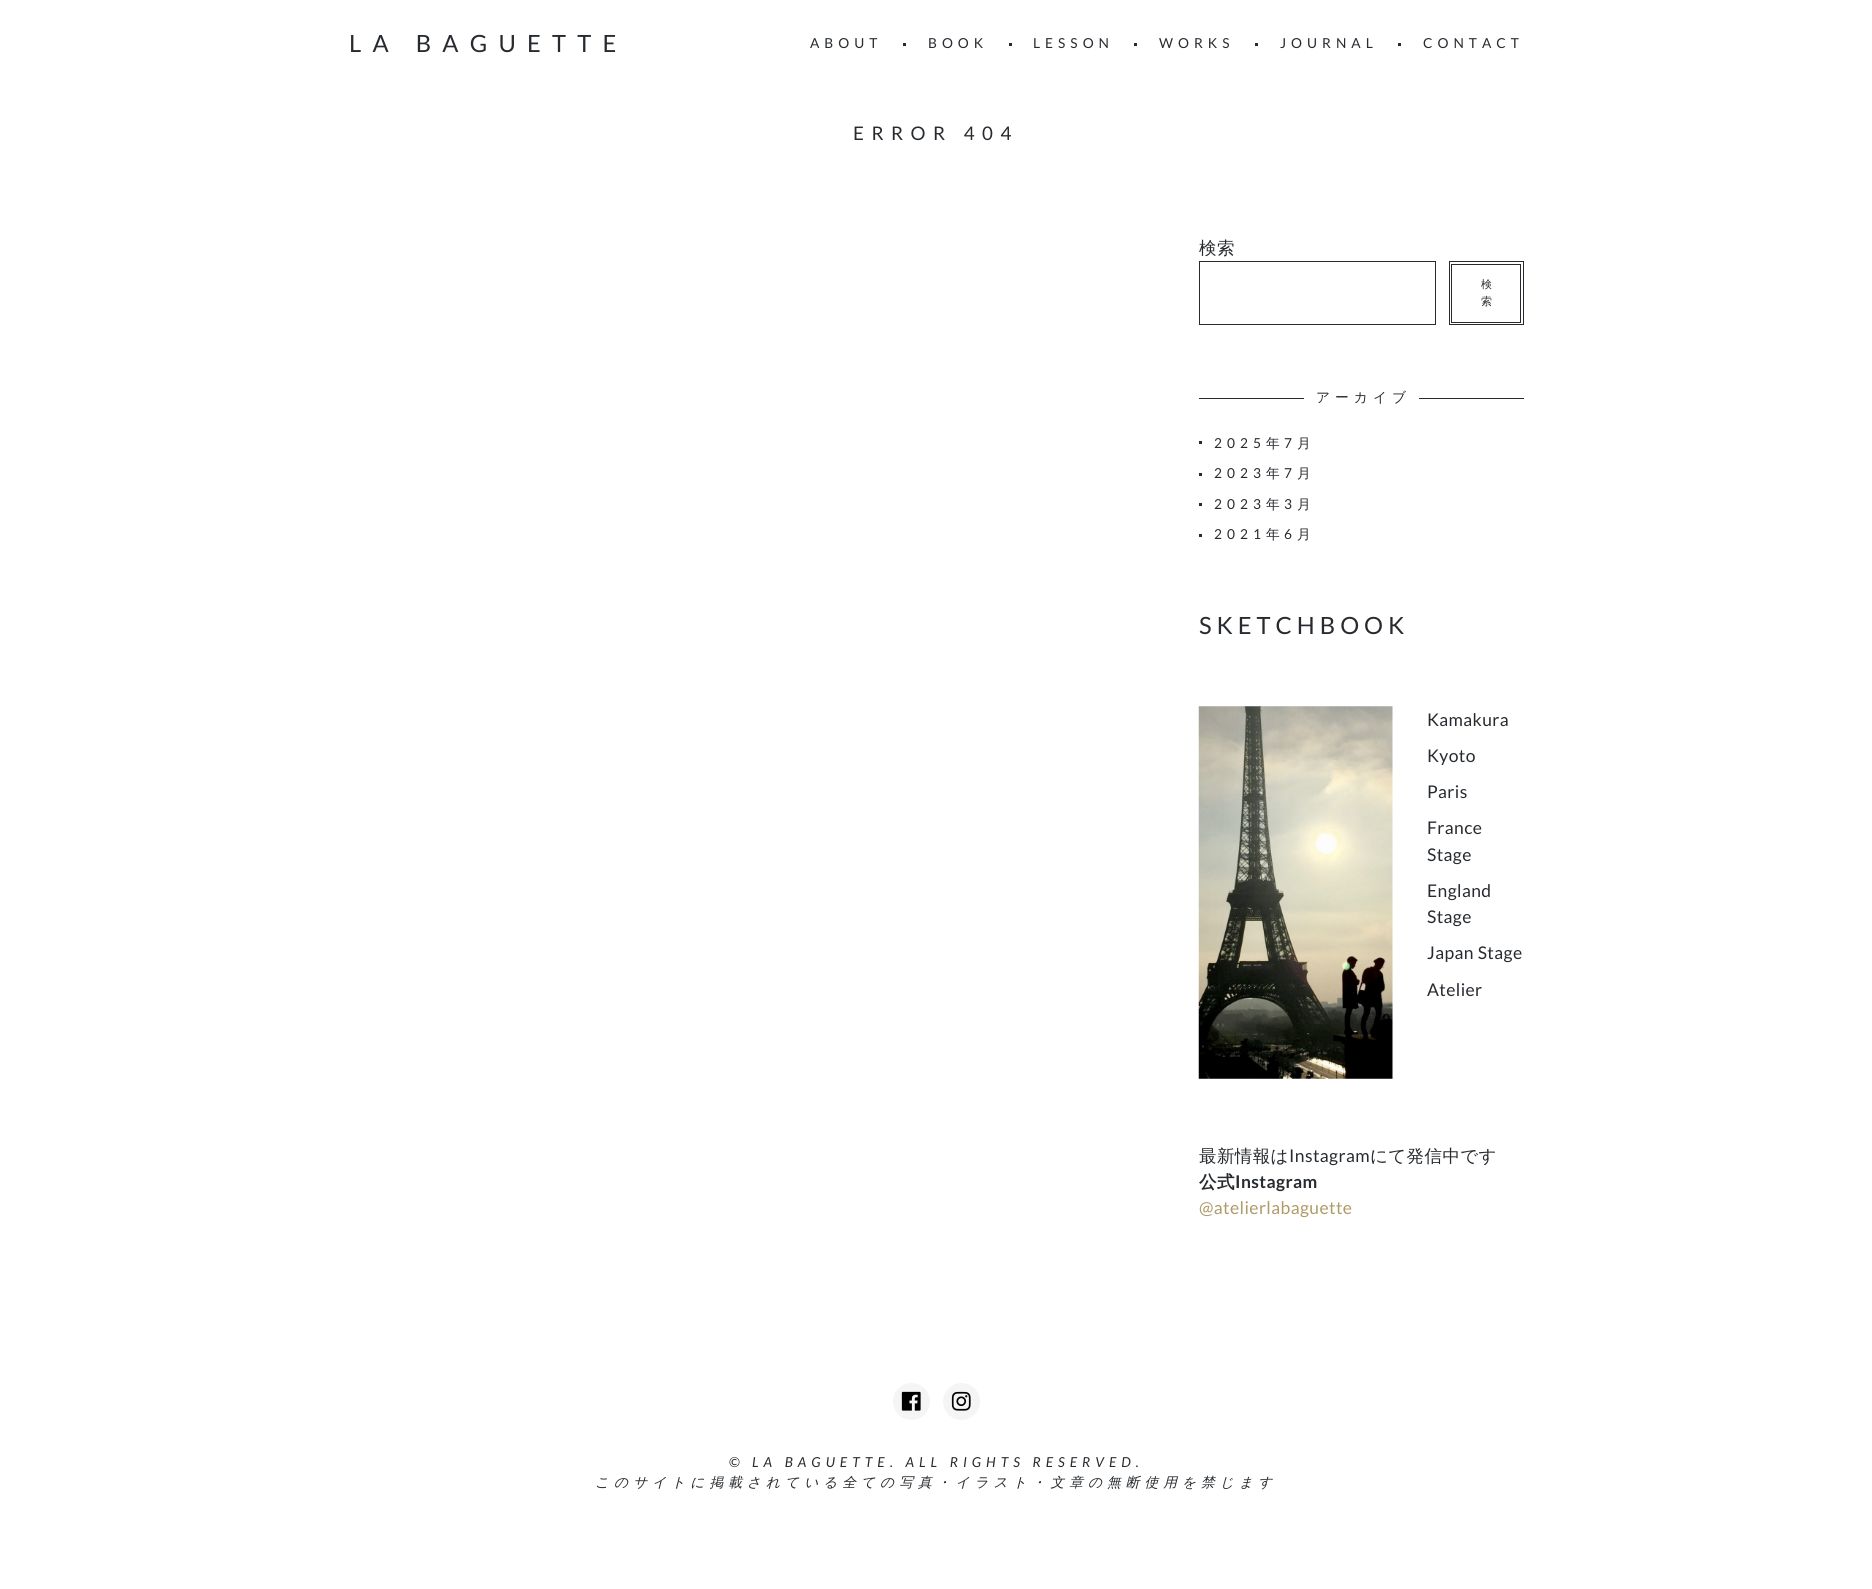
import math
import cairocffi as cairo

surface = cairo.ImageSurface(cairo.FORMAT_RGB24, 1872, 1589)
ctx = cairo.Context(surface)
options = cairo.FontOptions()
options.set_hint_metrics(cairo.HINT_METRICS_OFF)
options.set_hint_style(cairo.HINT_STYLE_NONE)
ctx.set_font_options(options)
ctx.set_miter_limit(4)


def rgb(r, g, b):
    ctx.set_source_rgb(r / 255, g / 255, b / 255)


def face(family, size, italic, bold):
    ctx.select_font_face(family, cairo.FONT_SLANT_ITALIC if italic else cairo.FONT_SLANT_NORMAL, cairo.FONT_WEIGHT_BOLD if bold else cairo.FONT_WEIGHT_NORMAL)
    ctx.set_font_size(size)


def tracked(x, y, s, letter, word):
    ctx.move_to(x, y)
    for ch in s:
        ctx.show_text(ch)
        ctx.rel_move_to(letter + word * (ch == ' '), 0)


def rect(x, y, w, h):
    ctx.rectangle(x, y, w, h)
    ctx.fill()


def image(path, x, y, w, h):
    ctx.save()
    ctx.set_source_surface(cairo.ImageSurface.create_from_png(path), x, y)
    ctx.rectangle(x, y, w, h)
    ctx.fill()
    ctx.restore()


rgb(255, 255, 255)
ctx.paint()
face('Lato', 23.75, 0, 0)
rgb(39, 43, 47)
tracked(349, 52, 'LA BAGUETTE', 11.25, 0)
face('Lato', 13.75, 0, 0)
tracked(810, 48, 'ABOUT', 5, 0)
rect(903, 43, 3, 3)
tracked(928, 48, 'BOOK', 5, 0)
rect(1009, 43, 3, 3)
tracked(1033, 48, 'LESSON', 5, 0)
rect(1134, 43, 3, 3)
tracked(1159, 48, 'WORKS', 5, 0)
rect(1255, 43, 3, 3)
tracked(1280, 48, 'JOURNAL', 5, 0)
rect(1398, 43, 3, 3)
tracked(1423, 48, 'CONTACT', 5, 0)
face('Lato', 18.75, 0, 0)
tracked(853, 140, 'ERROR 404', 7.5, 0)
face('WenQuanYi Zen Hei Medium', 17.5, 0, 0)
tracked(1199, 254, '検索', 0.4, 0)
ctx.rectangle(1199.5, 261.5, 236, 63)
ctx.set_line_width(1)
ctx.stroke()
ctx.rectangle(1449.5, 261.5, 74, 63)
ctx.stroke()
ctx.rectangle(1451.5, 264.5, 69, 58)
ctx.stroke()
face('WenQuanYi Zen Hei Medium', 11, 0, 0)
tracked(1481, 288, '検', 2, 0)
tracked(1481, 305, '索', 2, 0)
rect(1199, 398, 325, 1)
rgb(255, 255, 255)
rect(1304, 398, 115, 1)
face('WenQuanYi Zen Hei Medium', 13.75, 0, 0)
rgb(39, 43, 47)
tracked(1316, 402, 'アーカイブ', 5, 0)
rect(1199, 441, 3, 3)
face('Lato', 13.75, 0, 0)
tracked(1214, 448, '2025', 5, 0)
face('WenQuanYi Zen Hei Medium', 13.75, 0, 0)
tracked(1266, 448, '年', 5, 0)
face('Lato', 13.75, 0, 0)
tracked(1284, 448, '7', 5, 0)
face('WenQuanYi Zen Hei Medium', 13.75, 0, 0)
tracked(1297, 448, '月', 5, 0)
rect(1199, 473, 3, 3)
face('Lato', 13.75, 0, 0)
tracked(1214, 478, '2023', 5, 0)
face('WenQuanYi Zen Hei Medium', 13.75, 0, 0)
tracked(1266, 478, '年', 5, 0)
face('Lato', 13.75, 0, 0)
tracked(1284, 478, '7', 5, 0)
face('WenQuanYi Zen Hei Medium', 13.75, 0, 0)
tracked(1297, 478, '月', 5, 0)
rect(1199, 503, 3, 3)
face('Lato', 13.75, 0, 0)
tracked(1214, 509, '2023', 5, 0)
face('WenQuanYi Zen Hei Medium', 13.75, 0, 0)
tracked(1266, 509, '年', 5, 0)
face('Lato', 13.75, 0, 0)
tracked(1284, 509, '3', 5, 0)
face('WenQuanYi Zen Hei Medium', 13.75, 0, 0)
tracked(1297, 509, '月', 5, 0)
rect(1199, 534, 3, 3)
face('Lato', 13.75, 0, 0)
tracked(1214, 539, '2021', 5, 0)
face('WenQuanYi Zen Hei Medium', 13.75, 0, 0)
tracked(1266, 539, '年', 5, 0)
face('Lato', 13.75, 0, 0)
tracked(1284, 539, '6', 5, 0)
face('WenQuanYi Zen Hei Medium', 13.75, 0, 0)
tracked(1297, 539, '月', 5, 0)
face('Lato', 23.75, 0, 0)
tracked(1199, 634, 'SKETCHBOOK', 5, 0)
image('image0.png', 1198, 706, 195, 373)
face('Lato', 17.5, 0, 0)
tracked(1427, 726, 'Kamakura', 0.4, 0)
tracked(1427, 762, 'Kyoto', 0.4, 0)
tracked(1427, 798, 'Paris', 0.4, 0)
tracked(1427, 834, 'France', 0.4, 0)
tracked(1427, 861, 'Stage', 0.4, 0)
tracked(1427, 897, 'England', 0.4, 0)
tracked(1427, 923, 'Stage', 0.4, 0)
tracked(1427, 959, 'Japan Stage', 0.4, 0)
tracked(1427, 996, 'Atelier', 0.4, 0)
face('WenQuanYi Zen Hei Medium', 17.5, 0, 0)
tracked(1199, 1162, '最新情報は', 0.4, 0)
face('Lato', 17.5, 0, 0)
tracked(1289, 1162, 'Instagram', 0.4, 0)
face('WenQuanYi Zen Hei Medium', 17.5, 0, 0)
tracked(1370, 1162, 'にて発信中です', 0.4, 0)
face('WenQuanYi Zen Hei', 17.5, 0, 1)
tracked(1199, 1188, '公式', 0.4, 0)
face('Lato', 17.5, 0, 1)
tracked(1235, 1188, 'Instagram', 0.4, 0)
face('Lato', 17.5, 0, 0)
rgb(176, 154, 104)
tracked(1199, 1214, '@atelierlabaguette', 0.4, 0)
rgb(245, 245, 245)
ctx.new_path()
ctx.arc(911.5, 1401.5, 18.5, 0, 2 * math.pi)
ctx.fill()
image('image1.png', 901, 1391, 20, 20)
ctx.arc(961.5, 1401.5, 18.5, 0, 2 * math.pi)
ctx.fill()
image('image2.png', 951, 1391, 20, 20)
face('Lato', 13.75, 0, 0)
rgb(39, 43, 47)
tracked(729, 1467, '©', 5, 0)
face('Lato', 13.75, 1, 0)
tracked(752, 1467, 'LA BAGUETTE', 5, 0)
tracked(890, 1467, '. ALL RIGHTS RESERVED.', 5, 0)
face('WenQuanYi Zen Hei Medium', 13.75, 1, 0)
tracked(595, 1487, 'このサイトに掲載されている全ての写真・イラスト・文章の無断使用を禁じます', 5, 0)
surface.write_to_png('render.png')
